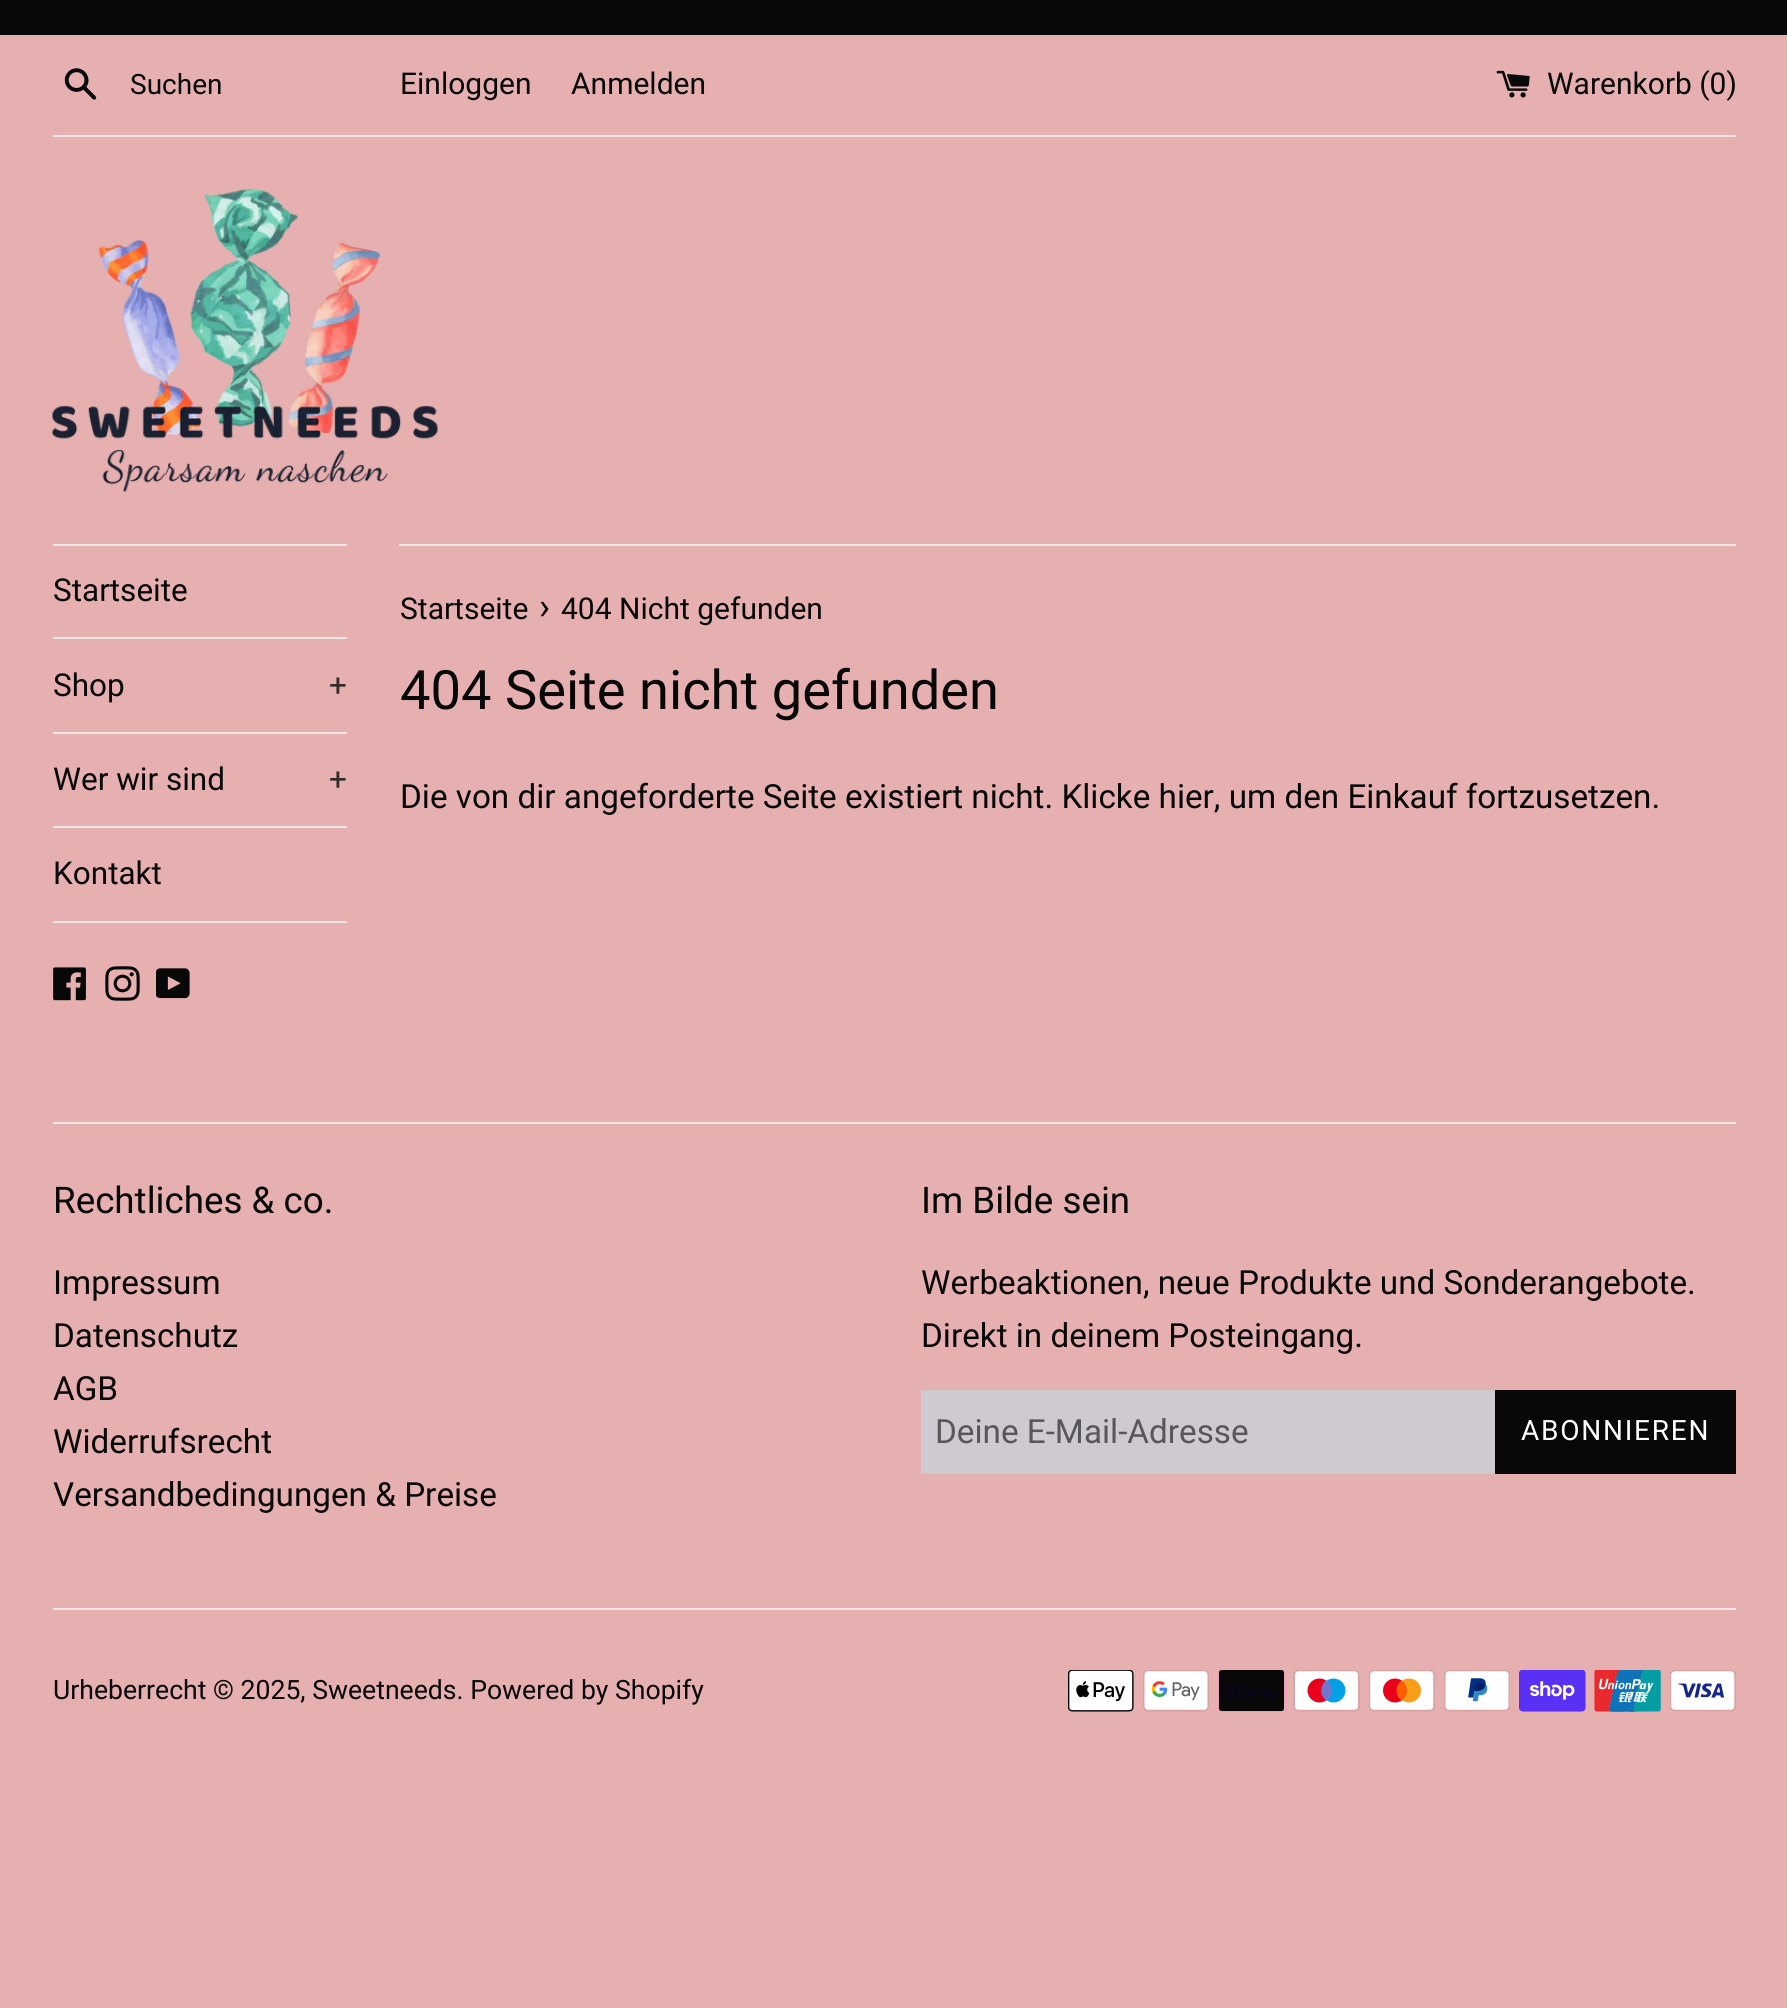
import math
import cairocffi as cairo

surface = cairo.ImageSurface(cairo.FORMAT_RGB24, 1787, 2008)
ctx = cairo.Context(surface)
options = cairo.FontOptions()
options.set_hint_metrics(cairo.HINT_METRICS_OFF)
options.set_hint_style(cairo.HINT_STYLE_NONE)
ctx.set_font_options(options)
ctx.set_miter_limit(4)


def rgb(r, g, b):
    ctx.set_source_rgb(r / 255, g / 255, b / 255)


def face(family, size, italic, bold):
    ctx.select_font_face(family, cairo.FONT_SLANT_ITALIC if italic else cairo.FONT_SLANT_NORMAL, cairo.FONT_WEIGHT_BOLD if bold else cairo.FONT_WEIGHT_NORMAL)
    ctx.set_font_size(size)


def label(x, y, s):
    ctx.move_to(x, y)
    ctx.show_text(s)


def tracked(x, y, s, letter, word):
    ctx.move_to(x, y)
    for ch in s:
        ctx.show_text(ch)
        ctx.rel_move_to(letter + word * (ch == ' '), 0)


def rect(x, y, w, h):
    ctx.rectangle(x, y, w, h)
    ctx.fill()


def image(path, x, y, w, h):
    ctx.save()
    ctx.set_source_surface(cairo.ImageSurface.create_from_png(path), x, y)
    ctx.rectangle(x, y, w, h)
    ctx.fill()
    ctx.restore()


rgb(231, 176, 176)
ctx.paint()
rgb(8, 8, 8)
rect(0, 0, 1787, 35)
image('image0.png', 64, 68, 33, 32)
face('Roboto', 28, 0, 0)
label(130, 94, 'Suchen')
face('Roboto', 30, 0, 0)
label(400, 94, 'Einloggen')
label(571, 94, 'Anmelden')
image('image1.png', 1496, 70, 34, 28)
label(1547, 94, 'Warenkorb (0)')
rgb(237, 232, 231)
rect(53, 135, 1683, 2)
image('image2.png', 52, 189, 386, 303)
rect(53, 544, 294, 2)
rect(53, 637, 294, 2)
face('Roboto', 31.5, 0, 0)
rgb(8, 8, 8)
label(53, 601, 'Startseite')
rgb(237, 232, 231)
rect(53, 732, 294, 2)
rgb(8, 8, 8)
label(53, 696, 'Shop')
rgb(53, 42, 42)
label(329, 696, '+')
rgb(237, 232, 231)
rect(53, 826, 294, 2)
rgb(8, 8, 8)
label(53, 790, 'Wer wir sind')
rgb(53, 42, 42)
label(329, 790, '+')
rgb(237, 232, 231)
rect(53, 921, 294, 2)
rgb(8, 8, 8)
label(53, 884, 'Kontakt')
image('image3.png', 53, 967, 33, 34)
image('image4.png', 105, 966, 35, 35)
image('image5.png', 156, 968, 34, 31)
rgb(237, 232, 231)
rect(399, 544, 1337, 2)
face('Roboto', 30, 0, 0)
rgb(8, 8, 8)
label(400, 619, 'Startseite')
face('Roboto', 37, 0, 0)
label(539, 619, '›')
face('Roboto', 30, 0, 0)
label(561, 619, '404 Nicht gefunden')
face('Roboto', 54.25, 0, 0)
label(400, 709, '404 Seite nicht gefunden')
face('Roboto', 33.25, 0, 0)
label(400, 808, 'Die von dir angeforderte Seite existiert nicht. Klicke hier, um den Einkauf fortzusetzen.')
rgb(237, 232, 231)
rect(53, 1122, 1683, 2)
face('Roboto', 36.75, 0, 0)
rgb(8, 8, 8)
label(53, 1213, 'Rechtliches & co.')
face('Roboto', 33.25, 0, 0)
label(53, 1294, 'Impressum')
label(53, 1347, 'Datenschutz')
label(53, 1400, 'AGB')
label(53, 1453, 'Widerrufsrecht')
label(53, 1506, 'Versandbedingungen & Preise')
face('Roboto', 36.75, 0, 0)
label(921, 1213, 'Im Bilde sein')
face('Roboto', 33.25, 0, 0)
label(921, 1294, 'Werbeaktionen, neue Produkte und Sonderangebote.')
label(921, 1347, 'Direkt in deinem Posteingang.')
rgb(207, 202, 209)
rect(921, 1390, 574, 84)
rgb(88, 86, 88)
label(935, 1443, 'Deine E-Mail-Adresse')
rgb(8, 8, 8)
rect(1495, 1390, 241, 84)
face('Roboto', 28, 0, 0)
rgb(255, 255, 255)
tracked(1521, 1440, 'ABONNIEREN', 1.75, 0)
rgb(237, 232, 231)
rect(53, 1608, 1683, 2)
face('Roboto', 26.6, 0, 0)
rgb(8, 8, 8)
label(53, 1699, 'Urheberrecht © 2025, Sweetneeds. Powered by Shopify')
image('image6.png', 1068, 1670, 66, 42)
image('image7.png', 1143, 1670, 66, 42)
image('image8.png', 1218, 1670, 67, 42)
image('image9.png', 1293, 1670, 67, 42)
image('image10.png', 1369, 1670, 66, 42)
image('image11.png', 1444, 1670, 66, 42)
image('image12.png', 1519, 1670, 67, 42)
image('image13.png', 1594, 1670, 67, 42)
image('image14.png', 1670, 1670, 66, 42)
surface.write_to_png('render.png')
